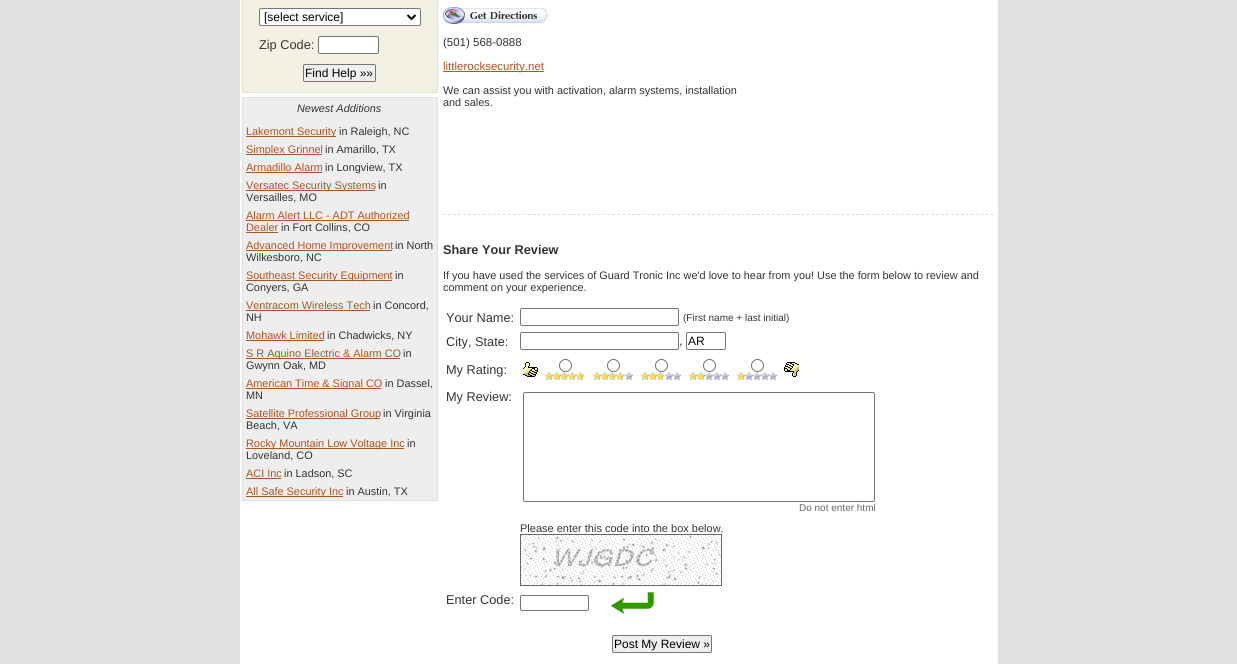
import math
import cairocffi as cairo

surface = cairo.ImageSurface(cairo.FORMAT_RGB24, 1237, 664)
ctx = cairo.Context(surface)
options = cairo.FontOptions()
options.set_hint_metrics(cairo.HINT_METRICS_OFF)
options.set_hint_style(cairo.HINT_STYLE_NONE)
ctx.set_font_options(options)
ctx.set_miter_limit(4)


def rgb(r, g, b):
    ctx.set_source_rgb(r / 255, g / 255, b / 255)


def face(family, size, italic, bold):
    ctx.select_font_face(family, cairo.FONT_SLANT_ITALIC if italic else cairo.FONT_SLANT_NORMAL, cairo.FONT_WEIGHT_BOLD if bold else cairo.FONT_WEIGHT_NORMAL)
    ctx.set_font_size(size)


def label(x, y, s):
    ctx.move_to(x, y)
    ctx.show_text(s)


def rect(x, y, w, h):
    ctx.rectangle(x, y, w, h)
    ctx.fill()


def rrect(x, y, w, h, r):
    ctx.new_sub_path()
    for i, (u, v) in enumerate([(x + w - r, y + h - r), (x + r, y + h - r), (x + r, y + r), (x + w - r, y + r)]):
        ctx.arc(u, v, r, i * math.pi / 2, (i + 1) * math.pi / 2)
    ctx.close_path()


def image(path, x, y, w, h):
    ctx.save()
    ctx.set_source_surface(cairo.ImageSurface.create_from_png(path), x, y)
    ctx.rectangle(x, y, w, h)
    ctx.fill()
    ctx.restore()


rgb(224, 224, 224)
ctx.paint()
rgb(255, 255, 255)
rect(240, 0, 758, 664)
rgb(243, 241, 228)
ctx.rectangle(242.5, -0.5, 195, 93)
ctx.fill_preserve()
rgb(231, 226, 199)
ctx.set_line_width(1)
ctx.stroke()
rgb(255, 255, 255)
rrect(259.5, 8.5, 161, 17, 1.5)
ctx.fill_preserve()
rgb(118, 118, 118)
ctx.stroke()
ctx.new_path()
ctx.move_to(407.5, 15)
ctx.line_to(411.5, 19)
ctx.line_to(415.5, 15)
rgb(0, 0, 0)
ctx.set_line_width(2)
ctx.stroke()
face('Liberation Sans', 12, 0, 0)
label(264, 21, '[select service]')
face('Liberation Sans', 12.75, 0, 0)
rgb(51, 51, 51)
label(259, 49, 'Zip Code:')
rgb(255, 255, 255)
rrect(318.5, 36.5, 60, 17, 1.5)
ctx.fill_preserve()
rgb(118, 118, 118)
ctx.set_line_width(1)
ctx.stroke()
rgb(239, 239, 239)
rrect(303.5, 64.5, 72, 17, 1.5)
ctx.fill_preserve()
rgb(118, 118, 118)
ctx.stroke()
face('Liberation Sans', 12, 0, 0)
rgb(0, 0, 0)
label(305, 77, 'Find Help »»')
rgb(238, 238, 238)
ctx.rectangle(242.5, 97.5, 195, 403)
ctx.fill_preserve()
rgb(224, 224, 224)
ctx.stroke()
face('Liberation Sans', 10.9, 1, 0)
rgb(51, 51, 51)
label(297, 112, 'Newest Additions')
rgb(177, 84, 32)
rect(246, 136, 90, 1)
face('Liberation Sans', 10.9, 0, 0)
label(246, 135, 'Lakemont Security')
rgb(51, 51, 51)
label(339, 135, 'in Raleigh, NC')
rgb(177, 84, 32)
rect(246, 154, 76, 1)
label(246, 153, 'Simplex Grinnel')
rgb(51, 51, 51)
label(325, 153, 'in Amarillo, TX')
rgb(177, 84, 32)
label(246, 171, 'Armadillo Alarm')
rect(246, 172, 76, 1)
rgb(51, 51, 51)
label(325, 171, 'in Longview, TX')
rgb(177, 84, 32)
rect(246, 190, 129, 1)
label(246, 189, 'Versatec Security Systems')
rgb(51, 51, 51)
label(378, 189, 'in')
label(246, 201, 'Versailles, MO')
rgb(177, 84, 32)
label(246, 219, 'Alarm Alert LLC - ADT Authorized')
rect(246, 220, 163, 1)
label(246, 231, 'Dealer')
rect(246, 232, 32, 1)
rgb(51, 51, 51)
label(281, 231, 'in Fort Collins, CO')
rgb(177, 84, 32)
rect(246, 250, 146, 1)
label(246, 249, 'Advanced Home Improvement')
rgb(51, 51, 51)
label(395, 249, 'in North')
label(246, 261, 'Wilkesboro, NC')
rgb(177, 84, 32)
rect(246, 280, 146, 1)
label(246, 279, 'Southeast Security Equipment')
rgb(51, 51, 51)
label(395, 279, 'in')
label(246, 291, 'Conyers, GA')
rgb(177, 84, 32)
label(246, 309, 'Ventracom Wireless Tech')
rect(246, 310, 124, 1)
rgb(51, 51, 51)
label(373, 309, 'in Concord,')
label(246, 321, 'NH')
rgb(177, 84, 32)
label(246, 339, 'Mohawk Limited')
rect(246, 340, 78, 1)
rgb(51, 51, 51)
label(327, 339, 'in Chadwicks, NY')
rgb(177, 84, 32)
rect(246, 358, 154, 1)
label(246, 357, 'S R Aquino Electric & Alarm CO')
rgb(51, 51, 51)
label(403, 357, 'in')
label(246, 369, 'Gwynn Oak, MD')
rgb(177, 84, 32)
rect(246, 388, 135, 1)
label(246, 387, 'American Time & Signal CO')
rgb(51, 51, 51)
label(385, 387, 'in Dassel,')
label(246, 399, 'MN')
rgb(177, 84, 32)
rect(246, 418, 134, 1)
label(246, 417, 'Satellite Professional Group')
rgb(51, 51, 51)
label(383, 417, 'in Virginia')
label(246, 429, 'Beach, VA')
rgb(177, 84, 32)
rect(246, 448, 158, 1)
label(246, 447, 'Rocky Mountain Low Voltage Inc')
rgb(51, 51, 51)
label(407, 447, 'in')
label(246, 459, 'Loveland, CO')
rgb(177, 84, 32)
label(246, 477, 'ACI Inc')
rect(246, 478, 35, 1)
rgb(51, 51, 51)
label(284, 477, 'in Ladson, SC')
rgb(177, 84, 32)
rect(246, 496, 97, 1)
label(246, 495, 'All Safe Security Inc')
rgb(51, 51, 51)
label(346, 495, 'in Austin, TX')
image('image0.png', 443, 7, 105, 17)
face('Liberation Sans', 11.5, 0, 0)
label(443, 46, '(501) 568-0888')
rgb(177, 84, 32)
rect(443, 71, 101, 1)
label(443, 70, 'littlerocksecurity.net')
face('Liberation Sans', 10.9, 0, 0)
rgb(51, 51, 51)
label(443, 94, 'We can assist you with activation, alarm systems, installation')
label(443, 106, 'and sales.')
ctx.new_path()
ctx.move_to(443, 214.5)
ctx.line_to(994, 214.5)
rgb(224, 224, 224)
ctx.set_dash([3, 1.98])
ctx.stroke()
face('Liberation Sans', 12.75, 0, 1)
rgb(51, 51, 51)
label(443, 254, 'Share Your Review')
face('Liberation Sans', 10.9, 0, 0)
label(443, 279, 'If you have used the services of Guard Tronic Inc we\'d love to hear from you! Use the form below to review and')
label(443, 291, 'comment on your experience.')
face('Liberation Sans', 12.75, 0, 0)
label(446, 322, 'Your Name:')
rrect(520.5, 308.5, 158, 17, 1.5)
rgb(118, 118, 118)
ctx.set_dash([])
ctx.stroke()
face('Liberation Sans', 10, 0, 0)
rgb(51, 51, 51)
label(683, 321, '(First name + last initial)')
face('Liberation Sans', 12.75, 0, 0)
label(446, 346, 'City, State:')
rrect(520.5, 332.5, 158, 17, 1.5)
rgb(118, 118, 118)
ctx.stroke()
rgb(51, 51, 51)
label(679, 345, ',')
rrect(686.5, 332.5, 39, 17, 1.5)
rgb(118, 118, 118)
ctx.stroke()
face('Liberation Sans', 12, 0, 0)
rgb(0, 0, 0)
label(688, 345, 'AR')
face('Liberation Sans', 12.75, 0, 0)
rgb(51, 51, 51)
label(446, 374, 'My Rating:')
image('image1.png', 523, 362, 15, 15)
ctx.arc(565.5, 365.5, 6, 0, 2 * math.pi)
rgb(118, 118, 118)
ctx.stroke()
image('image2.png', 545, 372, 40, 8)
ctx.arc(613.5, 365.5, 6, 0, 2 * math.pi)
ctx.stroke()
image('image3.png', 593, 372, 40, 8)
ctx.arc(661.5, 365.5, 6, 0, 2 * math.pi)
ctx.stroke()
image('image4.png', 641, 372, 40, 8)
ctx.arc(709.5, 365.5, 6, 0, 2 * math.pi)
ctx.stroke()
image('image5.png', 689, 372, 40, 8)
ctx.arc(757.5, 365.5, 6, 0, 2 * math.pi)
ctx.stroke()
image('image6.png', 737, 372, 40, 8)
image('image7.png', 784, 362, 15, 15)
rgb(51, 51, 51)
label(446, 401, 'My Review:')
rrect(523.5, 392.5, 351, 109, 1.5)
rgb(118, 118, 118)
ctx.stroke()
face('Liberation Sans', 10, 0, 0)
rgb(102, 102, 102)
label(799, 511, 'Do not enter html')
face('Liberation Sans', 11, 0, 0)
rgb(51, 51, 51)
label(520, 532, 'Please enter this code into the box below.')
ctx.rectangle(520.5, 534.5, 201, 51)
rgb(102, 102, 102)
ctx.stroke()
image('image8.png', 521, 535, 200, 50)
face('Liberation Sans', 12.75, 0, 0)
rgb(51, 51, 51)
label(446, 604, 'Enter Code:')
rrect(520.5, 595.5, 68, 15, 1.5)
rgb(118, 118, 118)
ctx.stroke()
image('image9.png', 611, 592, 43, 22)
rgb(239, 239, 239)
rrect(612.5, 635.5, 99, 17, 1.5)
ctx.fill_preserve()
rgb(118, 118, 118)
ctx.stroke()
face('Liberation Sans', 12, 0, 0)
rgb(0, 0, 0)
label(614, 648, 'Post My Review »')
surface.write_to_png('render.png')
